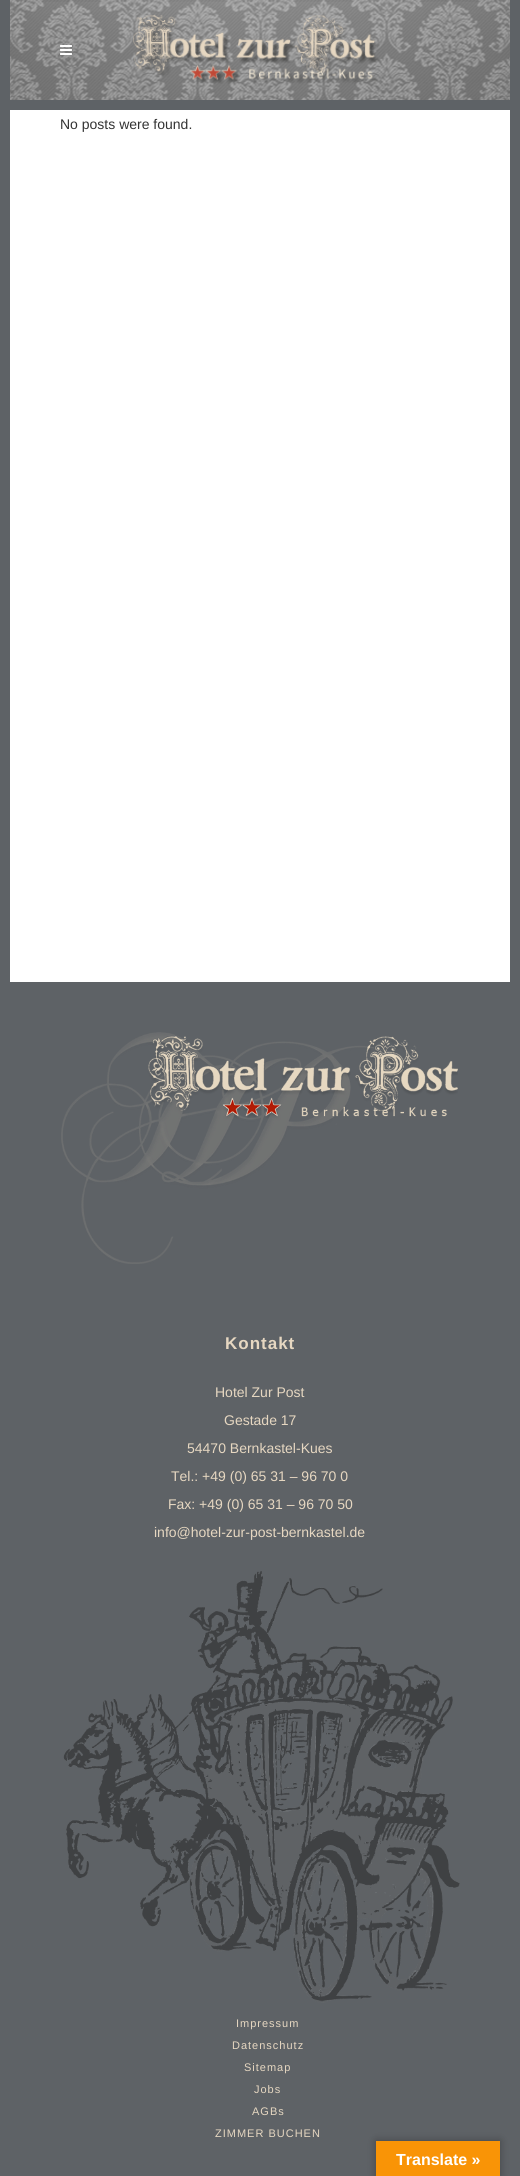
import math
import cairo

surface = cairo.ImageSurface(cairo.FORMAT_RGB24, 520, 2176)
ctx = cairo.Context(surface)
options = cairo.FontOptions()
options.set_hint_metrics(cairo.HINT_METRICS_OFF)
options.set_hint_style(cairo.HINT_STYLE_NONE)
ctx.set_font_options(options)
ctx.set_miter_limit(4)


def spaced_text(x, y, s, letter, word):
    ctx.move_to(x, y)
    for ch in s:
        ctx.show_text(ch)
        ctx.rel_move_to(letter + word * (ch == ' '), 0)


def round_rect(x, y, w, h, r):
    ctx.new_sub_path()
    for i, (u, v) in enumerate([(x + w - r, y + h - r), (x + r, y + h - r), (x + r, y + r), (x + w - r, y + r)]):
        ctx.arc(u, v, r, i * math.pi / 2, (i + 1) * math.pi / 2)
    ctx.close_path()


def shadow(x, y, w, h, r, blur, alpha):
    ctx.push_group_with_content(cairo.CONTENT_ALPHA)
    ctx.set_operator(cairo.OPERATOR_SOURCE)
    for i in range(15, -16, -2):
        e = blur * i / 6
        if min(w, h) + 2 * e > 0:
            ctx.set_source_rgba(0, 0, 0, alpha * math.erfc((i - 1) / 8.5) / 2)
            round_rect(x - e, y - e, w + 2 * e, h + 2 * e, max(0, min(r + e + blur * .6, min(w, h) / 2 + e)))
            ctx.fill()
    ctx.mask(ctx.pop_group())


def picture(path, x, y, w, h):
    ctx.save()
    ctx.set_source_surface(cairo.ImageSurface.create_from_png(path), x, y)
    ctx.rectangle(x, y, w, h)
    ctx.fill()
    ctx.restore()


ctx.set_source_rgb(1, 1, 1)
ctx.paint()
picture("img1.png", 10, 0, 500, 100)
picture("img2.png", 60, 45, 12, 10)
picture("img3.png", 133, 14, 247, 70)
ctx.set_source_rgb(0.369, 0.384, 0.4)
ctx.rectangle(0, 0, 10, 2176)
ctx.fill()
ctx.rectangle(10, 100, 500, 10)
ctx.fill()
ctx.select_font_face("Liberation Sans")
ctx.set_font_size(14)
ctx.set_source_rgb(0.2, 0.2, 0.2)
ctx.move_to(60, 129)
ctx.show_text("No posts were found.")
ctx.set_source_rgb(0.369, 0.384, 0.4)
ctx.rectangle(510, 0, 10, 2176)
ctx.fill()
ctx.rectangle(10, 982, 500, 1194)
ctx.fill()
picture("img4.png", 61, 1032, 397, 232)
ctx.select_font_face("Liberation Sans", cairo.FONT_SLANT_NORMAL, cairo.FONT_WEIGHT_BOLD)
ctx.set_font_size(17)
ctx.set_source_rgb(0.902, 0.843, 0.757)
spaced_text(225, 1349, "Kontakt", 1, 0)
ctx.select_font_face("Liberation Sans")
ctx.set_font_size(14)
ctx.move_to(215, 1397)
ctx.show_text("Hotel Zur Post")
ctx.move_to(224, 1425)
ctx.show_text("Gestade 17")
ctx.move_to(187, 1453)
ctx.show_text("54470 Bernkastel-Kues")
ctx.move_to(171, 1481)
ctx.show_text("Tel.: +49 (0) 65 31 – 96 70 0")
ctx.move_to(168, 1509)
ctx.show_text("Fax: +49 (0) 65 31 – 96 70 50")
ctx.move_to(154, 1537)
ctx.show_text("info@hotel-zur-post-bernkastel.de")
picture("img5.png", 63, 1571, 397, 432)
ctx.set_font_size(11)
spaced_text(236, 2027, "Impressum", 1, 0)
spaced_text(232, 2049, "Datenschutz", 1, 0)
spaced_text(244, 2071, "Sitemap", 1, 0)
spaced_text(254, 2093, "Jobs", 1, 0)
spaced_text(252, 2115, "AGBs", 1, 0)
spaced_text(215, 2137, "ZIMMER BUCHEN", 1, 0)
ctx.set_source_rgb(0, 0, 0)
shadow(376, 2141, 124, 35, 0, 4.5, 0.3)
ctx.set_source_rgb(0.973, 0.58, 0.024)
ctx.rectangle(376, 2141, 124, 35)
ctx.fill()
ctx.select_font_face("Liberation Sans", cairo.FONT_SLANT_NORMAL, cairo.FONT_WEIGHT_BOLD)
ctx.set_font_size(16)
ctx.set_source_rgb(1, 1, 1)
ctx.move_to(396, 2165)
ctx.show_text("Translate »")
surface.write_to_png("page.png")
